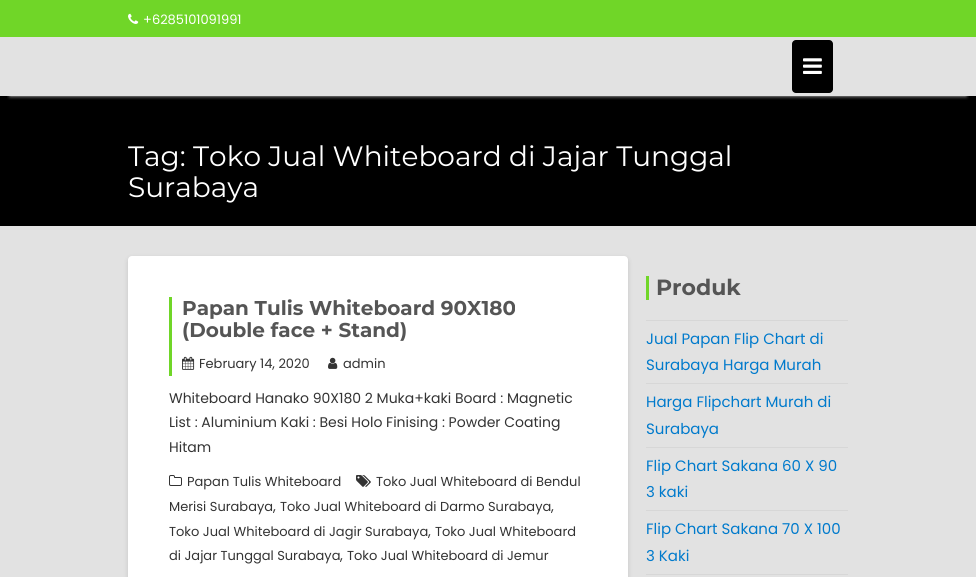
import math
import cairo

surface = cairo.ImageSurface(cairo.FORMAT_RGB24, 976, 577)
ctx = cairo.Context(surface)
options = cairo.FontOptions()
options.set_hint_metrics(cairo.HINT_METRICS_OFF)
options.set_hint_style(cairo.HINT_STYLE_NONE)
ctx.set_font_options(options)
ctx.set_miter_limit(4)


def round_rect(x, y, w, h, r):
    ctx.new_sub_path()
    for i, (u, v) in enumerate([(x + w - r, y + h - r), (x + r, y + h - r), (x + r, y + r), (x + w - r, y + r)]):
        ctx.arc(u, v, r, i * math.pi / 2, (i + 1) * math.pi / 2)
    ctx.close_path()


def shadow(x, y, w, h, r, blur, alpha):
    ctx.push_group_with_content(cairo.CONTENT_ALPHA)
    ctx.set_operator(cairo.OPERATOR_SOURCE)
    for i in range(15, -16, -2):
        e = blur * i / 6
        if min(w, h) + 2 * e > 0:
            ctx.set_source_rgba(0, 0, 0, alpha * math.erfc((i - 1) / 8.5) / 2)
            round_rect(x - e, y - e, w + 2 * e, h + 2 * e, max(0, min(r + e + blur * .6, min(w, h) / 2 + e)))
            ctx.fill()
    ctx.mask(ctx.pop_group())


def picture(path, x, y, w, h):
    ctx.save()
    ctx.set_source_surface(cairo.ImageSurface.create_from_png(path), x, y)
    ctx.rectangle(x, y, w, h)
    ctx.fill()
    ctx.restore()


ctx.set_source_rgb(0.886, 0.886, 0.886)
ctx.paint()
ctx.set_source_rgb(0.439, 0.839, 0.157)
ctx.rectangle(0, 0, 976, 37)
ctx.fill()
picture("img1.png", 128, 13, 11, 11)
ctx.select_font_face("Poppins")
ctx.set_font_size(13)
ctx.set_source_rgb(1, 1, 1)
ctx.move_to(143, 24)
ctx.show_text("+6285101091991")
ctx.set_source_rgb(0, 0, 0)
ctx.rectangle(0, 96, 976, 130)
ctx.fill()
ctx.save()
ctx.rectangle(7, 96, 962, 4)
ctx.clip()
ctx.set_source_rgb(0.933, 0.933, 0.933)
shadow(10, 57, 956, 39, 0, 2, 0.9)
ctx.restore()
round_rect(792, 40, 41, 53, 4)
ctx.fill()
picture("img2.png", 803, 58, 19, 16)
ctx.select_font_face("Montserrat")
ctx.set_font_size(28)
ctx.set_source_rgb(1, 1, 1)
ctx.move_to(128, 166)
ctx.show_text("Tag: Toko Jual Whiteboard di Jajar Tunggal")
ctx.move_to(128, 197)
ctx.show_text("Surabaya")
ctx.set_source_rgb(0, 0, 0)
shadow(128, 258, 500, 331, 4, 2.5, 0.13)
ctx.set_source_rgb(1, 1, 1)
round_rect(128, 256, 500, 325, 4)
ctx.fill()
ctx.set_source_rgb(0.439, 0.839, 0.157)
ctx.rectangle(169, 297, 3, 79)
ctx.fill()
ctx.select_font_face("Montserrat", cairo.FONT_SLANT_NORMAL, cairo.FONT_WEIGHT_BOLD)
ctx.set_font_size(20)
ctx.set_source_rgb(0.333, 0.333, 0.333)
ctx.move_to(182, 315)
ctx.show_text("Papan Tulis Whiteboard 90X180")
ctx.move_to(182, 337)
ctx.show_text("(Double face + Stand)")
picture("img3.png", 182, 356, 13, 14)
ctx.select_font_face("Poppins")
ctx.set_font_size(13)
ctx.set_source_rgb(0.2, 0.2, 0.2)
ctx.move_to(199, 368)
ctx.show_text("February 14, 2020")
picture("img4.png", 328, 357, 10, 12)
ctx.move_to(343, 368)
ctx.show_text("admin")
ctx.set_font_size(14)
ctx.move_to(169, 403)
ctx.show_text("Whiteboard Hanako 90X180 2 Muka+kaki Board : Magnetic")
ctx.move_to(169, 427)
ctx.show_text("List : Aluminium Kaki : Besi Holo Finising : Powder Coating")
ctx.move_to(169, 452)
ctx.show_text("Hitam")
picture("img5.png", 356, 475, 15, 12)
ctx.set_font_size(13)
ctx.move_to(376, 486)
ctx.show_text("Toko Jual Whiteboard di Bendul")
ctx.move_to(169, 511)
ctx.show_text("Merisi Surabaya")
ctx.set_font_size(14)
ctx.move_to(273, 511)
ctx.show_text(",")
ctx.set_font_size(13)
ctx.move_to(280, 511)
ctx.show_text("Toko Jual Whiteboard di Darmo Surabaya")
ctx.set_font_size(14)
ctx.move_to(551, 511)
ctx.show_text(",")
ctx.set_font_size(13)
ctx.move_to(169, 536)
ctx.show_text("Toko Jual Whiteboard di Jagir Surabaya")
ctx.set_font_size(14)
ctx.move_to(428, 536)
ctx.show_text(",")
ctx.set_font_size(13)
ctx.move_to(435, 536)
ctx.show_text("Toko Jual Whiteboard")
ctx.move_to(169, 560)
ctx.show_text("di Jajar Tunggal Surabaya")
ctx.set_font_size(14)
ctx.move_to(340, 560)
ctx.show_text(",")
ctx.set_font_size(13)
ctx.move_to(347, 560)
ctx.show_text("Toko Jual Whiteboard di Jemur")
picture("img6.png", 169, 475, 13, 11)
ctx.move_to(187, 486)
ctx.show_text("Papan Tulis Whiteboard")
ctx.set_source_rgb(0.439, 0.839, 0.157)
ctx.rectangle(646, 276, 3, 24)
ctx.fill()
ctx.select_font_face("Montserrat", cairo.FONT_SLANT_NORMAL, cairo.FONT_WEIGHT_BOLD)
ctx.set_font_size(22)
ctx.set_source_rgb(0.333, 0.333, 0.333)
ctx.move_to(656, 295)
ctx.show_text("Produk")
ctx.set_source_rgb(0.843, 0.843, 0.843)
ctx.rectangle(646, 320, 202, 1)
ctx.fill()
ctx.select_font_face("Poppins")
ctx.set_font_size(15)
ctx.set_source_rgb(0, 0.478, 0.8)
ctx.move_to(646, 344)
ctx.show_text("Jual Papan Flip Chart di")
ctx.move_to(646, 370)
ctx.show_text("Surabaya Harga Murah")
ctx.set_source_rgb(0.843, 0.843, 0.843)
ctx.rectangle(646, 383, 202, 1)
ctx.fill()
ctx.set_source_rgb(0, 0.478, 0.8)
ctx.move_to(646, 407)
ctx.show_text("Harga Flipchart Murah di")
ctx.move_to(646, 434)
ctx.show_text("Surabaya")
ctx.set_source_rgb(0.843, 0.843, 0.843)
ctx.rectangle(646, 447, 202, 1)
ctx.fill()
ctx.set_source_rgb(0, 0.478, 0.8)
ctx.move_to(646, 471)
ctx.show_text("Flip Chart Sakana 60 X 90")
ctx.move_to(646, 497)
ctx.show_text("3 kaki")
ctx.set_source_rgb(0.843, 0.843, 0.843)
ctx.rectangle(646, 510, 202, 1)
ctx.fill()
ctx.set_source_rgb(0, 0.478, 0.8)
ctx.move_to(646, 534)
ctx.show_text("Flip Chart Sakana 70 X 100")
ctx.move_to(646, 561)
ctx.show_text("3 Kaki")
ctx.set_source_rgb(0.843, 0.843, 0.843)
ctx.rectangle(646, 574, 202, 1)
ctx.fill()
surface.write_to_png("page.png")
